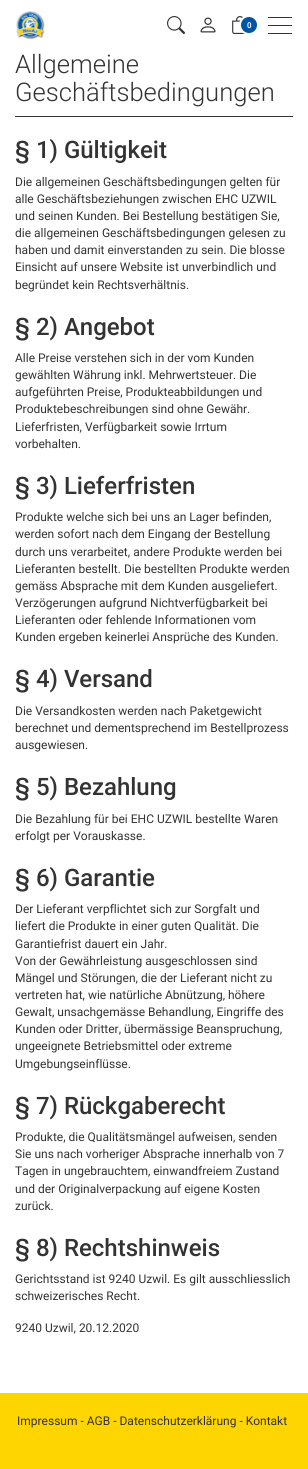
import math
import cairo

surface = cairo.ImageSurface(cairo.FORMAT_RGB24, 308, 1469)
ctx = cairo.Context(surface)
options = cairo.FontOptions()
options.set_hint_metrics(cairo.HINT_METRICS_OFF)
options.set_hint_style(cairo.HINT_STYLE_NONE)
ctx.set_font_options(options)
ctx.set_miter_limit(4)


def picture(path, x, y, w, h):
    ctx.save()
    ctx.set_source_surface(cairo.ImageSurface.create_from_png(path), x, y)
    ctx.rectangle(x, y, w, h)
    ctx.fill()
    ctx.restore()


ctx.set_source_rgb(1, 1, 1)
ctx.paint()
picture("img1.png", 16, 11, 29, 29)
picture("img2.png", 167, 16, 18, 18)
picture("img3.png", 200, 17, 16, 16)
picture("img4.png", 232, 16, 13, 18)
ctx.set_source_rgb(0, 0.333, 0.643)
ctx.arc(249, 25, 9, 0, 2 * math.pi)
ctx.fill_preserve()
ctx.set_source_rgb(1, 1, 1)
ctx.stroke()
ctx.select_font_face("Roboto SemiBold")
ctx.set_font_size(8)
ctx.move_to(247, 28)
ctx.show_text("0")
ctx.set_source_rgb(0.2, 0.2, 0.2)
ctx.rectangle(268, 17, 24, 1)
ctx.fill()
ctx.rectangle(268, 25, 24, 1)
ctx.fill()
ctx.rectangle(268, 33, 24, 1)
ctx.fill()
ctx.rectangle(15, 116, 278, 1)
ctx.fill()
ctx.select_font_face("Roboto Light")
ctx.set_font_size(25.6)
ctx.move_to(15, 73)
ctx.show_text("Allgemeine")
ctx.move_to(15, 101)
ctx.show_text("Geschäftsbedingungen")
ctx.select_font_face("Roboto Medium")
ctx.set_font_size(24)
ctx.move_to(15, 158)
ctx.show_text("§ 1) Gültigkeit")
ctx.select_font_face("Roboto")
ctx.set_font_size(12)
ctx.move_to(15, 186)
ctx.show_text("Die allgemeinen Geschäftsbedingungen gelten für")
ctx.move_to(15, 203)
ctx.show_text("alle Geschäftsbeziehungen zwischen EHC UZWIL")
ctx.move_to(15, 220)
ctx.show_text("und seinen Kunden. Bei Bestellung bestätigen Sie,")
ctx.move_to(15, 237)
ctx.show_text("die allgemeinen Geschäftsbedingungen gelesen zu")
ctx.move_to(15, 254)
ctx.show_text("haben und damit einverstanden zu sein. Die blosse")
ctx.move_to(15, 271)
ctx.show_text("Einsicht auf unsere Website ist unverbindlich und")
ctx.move_to(15, 289)
ctx.show_text("begründet kein Rechtsverhältnis.")
ctx.select_font_face("Roboto Medium")
ctx.set_font_size(24)
ctx.move_to(15, 335)
ctx.show_text("§ 2) Angebot")
ctx.select_font_face("Roboto")
ctx.set_font_size(12)
ctx.move_to(15, 362)
ctx.show_text("Alle Preise verstehen sich in der vom Kunden")
ctx.move_to(15, 379)
ctx.show_text("gewählten Währung inkl. Mehrwertsteuer. Die")
ctx.move_to(15, 396)
ctx.show_text("aufgeführten Preise, Produkteabbildungen und")
ctx.move_to(15, 413)
ctx.show_text("Produktebeschreibungen sind ohne Gewähr.")
ctx.move_to(15, 431)
ctx.show_text("Lieferfristen, Verfügbarkeit sowie Irrtum")
ctx.move_to(15, 448)
ctx.show_text("vorbehalten.")
ctx.select_font_face("Roboto Medium")
ctx.set_font_size(24)
ctx.move_to(15, 494)
ctx.show_text("§ 3) Lieferfristen")
ctx.select_font_face("Roboto")
ctx.set_font_size(12)
ctx.move_to(15, 521)
ctx.show_text("Produkte welche sich bei uns an Lager befinden,")
ctx.move_to(15, 538)
ctx.show_text("werden sofort nach dem Eingang der Bestellung")
ctx.move_to(15, 556)
ctx.show_text("durch uns verarbeitet, andere Produkte werden bei")
ctx.move_to(15, 573)
ctx.show_text("Lieferanten bestellt. Die bestellten Produkte werden")
ctx.move_to(15, 590)
ctx.show_text("gemäss Absprache mit dem Kunden ausgeliefert.")
ctx.move_to(15, 607)
ctx.show_text("Verzögerungen aufgrund Nichtverfügbarkeit bei")
ctx.move_to(15, 624)
ctx.show_text("Lieferanten oder fehlende Informationen vom")
ctx.move_to(15, 641)
ctx.show_text("Kunden ergeben keinerlei Ansprüche des Kunden.")
ctx.select_font_face("Roboto Medium")
ctx.set_font_size(24)
ctx.move_to(15, 687)
ctx.show_text("§ 4) Versand")
ctx.select_font_face("Roboto")
ctx.set_font_size(12)
ctx.move_to(15, 715)
ctx.show_text("Die Versandkosten werden nach Paketgewicht")
ctx.move_to(15, 732)
ctx.show_text("berechnet und dementsprechend im Bestellprozess")
ctx.move_to(15, 749)
ctx.show_text("ausgewiesen.")
ctx.select_font_face("Roboto Medium")
ctx.set_font_size(24)
ctx.move_to(15, 795)
ctx.show_text("§ 5) Bezahlung")
ctx.select_font_face("Roboto")
ctx.set_font_size(12)
ctx.move_to(15, 823)
ctx.show_text("Die Bezahlung für bei EHC UZWIL bestellte Waren")
ctx.move_to(15, 840)
ctx.show_text("erfolgt per Vorauskasse.")
ctx.select_font_face("Roboto Medium")
ctx.set_font_size(24)
ctx.move_to(15, 886)
ctx.show_text("§ 6) Garantie")
ctx.select_font_face("Roboto")
ctx.set_font_size(12)
ctx.move_to(15, 913)
ctx.show_text("Der Lieferant verpflichtet sich zur Sorgfalt und")
ctx.move_to(15, 930)
ctx.show_text("liefert die Produkte in einer guten Qualität. Die")
ctx.move_to(15, 948)
ctx.show_text("Garantiefrist dauert ein Jahr.")
ctx.move_to(15, 965)
ctx.show_text("Von der Gewährleistung ausgeschlossen sind")
ctx.move_to(15, 982)
ctx.show_text("Mängel und Störungen, die der Lieferant nicht zu")
ctx.move_to(15, 999)
ctx.show_text("vertreten hat, wie natürliche Abnützung, höhere")
ctx.move_to(15, 1016)
ctx.show_text("Gewalt, unsachgemässe Behandlung, Eingriffe des")
ctx.move_to(15, 1033)
ctx.show_text("Kunden oder Dritter, übermässige Beanspruchung,")
ctx.move_to(15, 1050)
ctx.show_text("ungeeignete Betriebsmittel oder extreme")
ctx.move_to(15, 1068)
ctx.show_text("Umgebungseinflüsse.")
ctx.select_font_face("Roboto Medium")
ctx.set_font_size(24)
ctx.move_to(15, 1114)
ctx.show_text("§ 7) Rückgaberecht")
ctx.select_font_face("Roboto")
ctx.set_font_size(12)
ctx.move_to(15, 1141)
ctx.show_text("Produkte, die Qualitätsmängel aufweisen, senden")
ctx.move_to(15, 1158)
ctx.show_text("Sie uns nach vorheriger Absprache innerhalb von 7")
ctx.move_to(15, 1175)
ctx.show_text("Tagen in ungebrauchtem, einwandfreiem Zustand")
ctx.move_to(15, 1193)
ctx.show_text("und der Originalverpackung auf eigene Kosten")
ctx.move_to(15, 1210)
ctx.show_text("zurück.")
ctx.select_font_face("Roboto Medium")
ctx.set_font_size(24)
ctx.move_to(15, 1256)
ctx.show_text("§ 8) Rechtshinweis")
ctx.select_font_face("Roboto")
ctx.set_font_size(12)
ctx.move_to(15, 1283)
ctx.show_text("Gerichtsstand ist 9240 Uzwil. Es gilt ausschliesslich")
ctx.move_to(15, 1300)
ctx.show_text("schweizerisches Recht.")
ctx.move_to(15, 1332)
ctx.show_text("9240 Uzwil, 20.12.2020")
ctx.set_source_rgb(1, 0.835, 0)
ctx.rectangle(0, 1393, 308, 76)
ctx.fill()
ctx.set_source_rgb(0.2, 0.2, 0.2)
ctx.move_to(17, 1425)
ctx.show_text("Impressum - AGB - Datenschutzerklärung - Kontakt")
surface.write_to_png("page.png")
